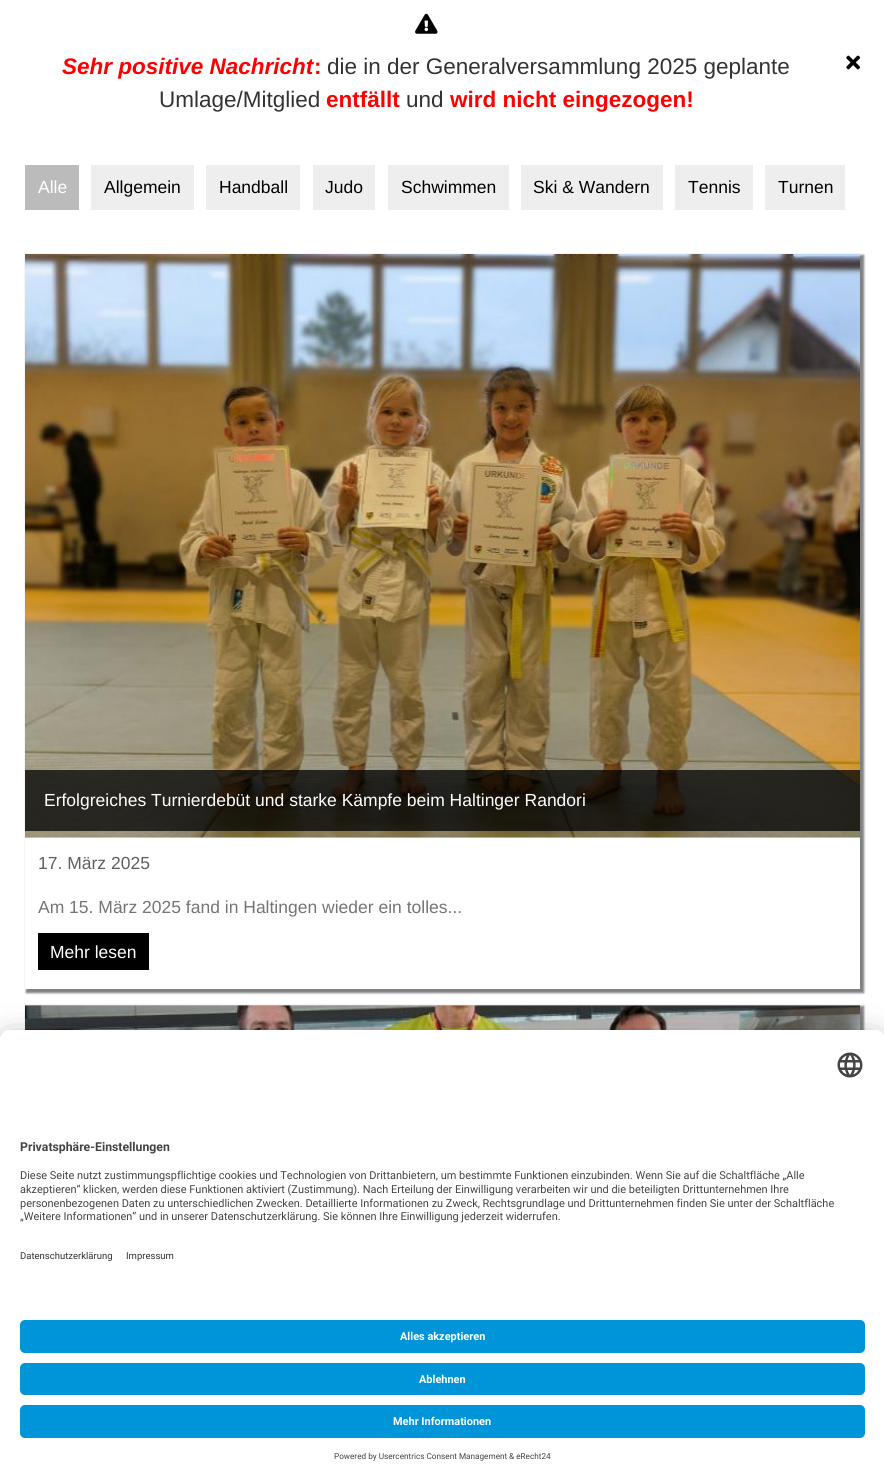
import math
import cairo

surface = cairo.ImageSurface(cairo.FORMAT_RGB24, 884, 1482)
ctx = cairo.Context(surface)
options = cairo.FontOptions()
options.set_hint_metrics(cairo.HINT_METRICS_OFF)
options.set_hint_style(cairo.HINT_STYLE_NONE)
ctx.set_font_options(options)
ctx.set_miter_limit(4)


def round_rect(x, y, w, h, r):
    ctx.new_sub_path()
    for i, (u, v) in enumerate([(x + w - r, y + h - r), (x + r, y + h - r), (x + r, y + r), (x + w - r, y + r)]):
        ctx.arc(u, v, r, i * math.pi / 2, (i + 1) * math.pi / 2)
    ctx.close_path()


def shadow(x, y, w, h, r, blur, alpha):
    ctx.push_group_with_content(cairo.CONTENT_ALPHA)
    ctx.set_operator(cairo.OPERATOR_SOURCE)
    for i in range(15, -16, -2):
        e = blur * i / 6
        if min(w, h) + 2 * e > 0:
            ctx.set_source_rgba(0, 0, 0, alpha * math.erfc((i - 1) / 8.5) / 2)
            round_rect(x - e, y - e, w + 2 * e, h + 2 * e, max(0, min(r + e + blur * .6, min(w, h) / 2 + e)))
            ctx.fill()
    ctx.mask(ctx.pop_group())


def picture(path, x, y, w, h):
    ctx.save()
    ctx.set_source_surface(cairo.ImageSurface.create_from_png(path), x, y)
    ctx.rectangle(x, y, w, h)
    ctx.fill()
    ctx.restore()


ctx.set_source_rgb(1, 1, 1)
ctx.paint()
picture("img1.png", 415, 13, 23, 21)
ctx.select_font_face("Liberation Sans", cairo.FONT_SLANT_ITALIC, cairo.FONT_WEIGHT_BOLD)
ctx.set_font_size(22.5)
ctx.set_source_rgb(1, 0, 0)
ctx.move_to(62, 74)
ctx.show_text("Sehr positive Nachricht")
ctx.select_font_face("Liberation Sans", cairo.FONT_SLANT_NORMAL, cairo.FONT_WEIGHT_BOLD)
ctx.move_to(314, 74)
ctx.show_text(":")
ctx.select_font_face("Liberation Sans")
ctx.set_source_rgb(0.2, 0.2, 0.2)
ctx.move_to(327, 74)
ctx.show_text("die in der Generalversammlung 2025 geplante")
ctx.move_to(159, 107)
ctx.show_text("Umlage/Mitglied")
ctx.select_font_face("Liberation Sans", cairo.FONT_SLANT_NORMAL, cairo.FONT_WEIGHT_BOLD)
ctx.set_source_rgb(1, 0, 0)
ctx.move_to(326, 107)
ctx.show_text("entfällt")
ctx.select_font_face("Liberation Sans")
ctx.set_source_rgb(0.2, 0.2, 0.2)
ctx.move_to(406, 107)
ctx.show_text("und")
ctx.select_font_face("Liberation Sans", cairo.FONT_SLANT_NORMAL, cairo.FONT_WEIGHT_BOLD)
ctx.set_source_rgb(1, 0, 0)
ctx.move_to(450, 107)
ctx.show_text("wird nicht eingezogen!")
picture("img2.png", 846, 55, 14, 15)
ctx.set_source_rgb(0.733, 0.733, 0.733)
ctx.rectangle(25, 165, 54, 45)
ctx.fill()
ctx.select_font_face("Liberation Sans")
ctx.set_font_size(17.5)
ctx.set_source_rgb(1, 1, 1)
ctx.move_to(38, 193)
ctx.show_text("Alle")
ctx.set_source_rgb(0.933, 0.933, 0.933)
ctx.rectangle(91, 165, 103, 45)
ctx.fill()
ctx.set_source_rgb(0, 0, 0)
ctx.move_to(104, 193)
ctx.show_text("Allgemein")
ctx.set_source_rgb(0.933, 0.933, 0.933)
ctx.rectangle(206, 165, 94, 45)
ctx.fill()
ctx.set_source_rgb(0, 0, 0)
ctx.move_to(219, 193)
ctx.show_text("Handball")
ctx.set_source_rgb(0.933, 0.933, 0.933)
ctx.rectangle(313, 165, 62, 45)
ctx.fill()
ctx.set_source_rgb(0, 0, 0)
ctx.move_to(325, 193)
ctx.show_text("Judo")
ctx.set_source_rgb(0.933, 0.933, 0.933)
ctx.rectangle(388, 165, 121, 45)
ctx.fill()
ctx.set_source_rgb(0, 0, 0)
ctx.move_to(401, 193)
ctx.show_text("Schwimmen")
ctx.set_source_rgb(0.933, 0.933, 0.933)
ctx.rectangle(521, 165, 142, 45)
ctx.fill()
ctx.set_source_rgb(0, 0, 0)
ctx.move_to(533, 193)
ctx.show_text("Ski & Wandern")
ctx.set_source_rgb(0.933, 0.933, 0.933)
ctx.rectangle(675, 165, 78, 45)
ctx.fill()
ctx.set_source_rgb(0, 0, 0)
ctx.move_to(688, 193)
ctx.show_text("Tennis")
ctx.set_source_rgb(0.933, 0.933, 0.933)
ctx.rectangle(765, 165, 80, 45)
ctx.fill()
ctx.set_source_rgb(0, 0, 0)
ctx.move_to(778, 193)
ctx.show_text("Turnen")
ctx.save()
ctx.set_fill_rule(cairo.FILL_RULE_EVEN_ODD)
ctx.new_path()
ctx.move_to(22, 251)
ctx.line_to(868, 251)
ctx.line_to(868, 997)
ctx.line_to(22, 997)
ctx.close_path()
ctx.move_to(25, 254)
ctx.line_to(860, 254)
ctx.line_to(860, 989)
ctx.line_to(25, 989)
ctx.close_path()
ctx.clip()
ctx.set_source_rgb(0, 0, 0)
shadow(26, 255, 838, 738, 0, 1, 0.5)
ctx.restore()
picture("img3.png", 25, 254, 835, 584)
ctx.set_source_rgba(0, 0, 0, 0.75)
ctx.rectangle(25, 770, 835, 61)
ctx.fill()
ctx.set_source_rgb(1, 1, 1)
ctx.move_to(44, 806)
ctx.show_text("Erfolgreiches Turnierdebüt und starke Kämpfe beim Haltinger Randori")
ctx.set_source_rgb(0.376, 0.376, 0.376)
ctx.move_to(38, 869)
ctx.show_text("17. März 2025")
ctx.set_source_rgb(0.459, 0.459, 0.459)
ctx.move_to(38, 913)
ctx.show_text("Am 15. März 2025 fand in Haltingen wieder ein tolles...")
ctx.set_source_rgb(0, 0, 0)
ctx.rectangle(38, 933, 111, 37)
ctx.fill()
ctx.set_source_rgb(1, 1, 1)
ctx.move_to(50, 958)
ctx.show_text("Mehr lesen")
ctx.set_source_rgb(0, 0, 0)
shadow(26, 1006, 838, 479, 0, 1, 0.5)
picture("img4.png", 25, 1005, 835, 25)
shadow(0, 1055, 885, 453, 10, 17.5, 0.3)
shadow(0, 1036, 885, 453, 10, 16, 0.22)
ctx.set_source_rgb(1, 1, 1)
ctx.new_path()
ctx.move_to(10, 1030)
ctx.line_to(875, 1030)
ctx.curve_to(880.5, 1030, 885, 1034.5, 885, 1040)
ctx.line_to(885, 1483)
ctx.line_to(0, 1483)
ctx.line_to(0, 1040)
ctx.curve_to(0, 1034.5, 4.5, 1030, 10, 1030)
ctx.close_path()
ctx.fill()
ctx.new_path()
ctx.move_to(10, 1030)
ctx.line_to(875, 1030)
ctx.curve_to(880.5, 1030, 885, 1034.5, 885, 1040)
ctx.line_to(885, 1305)
ctx.line_to(0, 1305)
ctx.line_to(0, 1040)
ctx.curve_to(0, 1034.5, 4.5, 1030, 10, 1030)
ctx.close_path()
ctx.fill()
picture("img5.png", 837, 1052, 26, 26)
ctx.select_font_face("Roboto", cairo.FONT_SLANT_NORMAL, cairo.FONT_WEIGHT_BOLD)
ctx.set_font_size(12.25)
ctx.set_source_rgb(0.267, 0.267, 0.267)
ctx.move_to(20, 1151)
ctx.show_text("Privatsphäre-Einstellungen")
ctx.select_font_face("Roboto")
ctx.set_font_size(10.95)
ctx.move_to(20, 1179)
ctx.show_text("Diese Seite nutzt zustimmungspflichtige cookies und Technologien von Drittanbietern, um bestimmte Funktionen einzubinden. Wenn Sie auf die Schaltfläche „Alle")
ctx.move_to(20, 1193)
ctx.show_text("akzeptieren“ klicken, werden diese Funktionen aktiviert (Zustimmung). Nach Erteilung der Einwilligung verarbeiten wir und die beteiligten Drittunternehmen Ihre")
ctx.move_to(20, 1207)
ctx.show_text("personenbezogenen Daten zu unterschiedlichen Zwecken. Detaillierte Informationen zu Zweck, Rechtsgrundlage und Drittunternehmen finden Sie unter der Schaltfläche")
ctx.move_to(20, 1220)
ctx.show_text("„Weitere Informationen“ und in unserer Datenschutzerklärung. Sie können Ihre Einwilligung jederzeit widerrufen.")
ctx.set_font_size(9.5)
ctx.set_source_rgb(0.2, 0.2, 0.2)
ctx.move_to(20, 1259)
ctx.show_text("Datenschutzerklärung")
ctx.move_to(126, 1259)
ctx.show_text("Impressum")
ctx.set_source_rgb(0, 0.58, 0.847)
round_rect(20, 1320, 845, 33, 5)
ctx.fill()
ctx.select_font_face("Roboto", cairo.FONT_SLANT_NORMAL, cairo.FONT_WEIGHT_BOLD)
ctx.set_font_size(10.95)
ctx.set_source_rgb(1, 1, 1)
ctx.move_to(400, 1340)
ctx.show_text("Alles akzeptieren")
ctx.set_source_rgb(0, 0.58, 0.847)
round_rect(20, 1363, 845, 32, 5)
ctx.fill()
ctx.set_source_rgb(1, 1, 1)
ctx.move_to(419, 1383)
ctx.show_text("Ablehnen")
ctx.set_source_rgb(0, 0.58, 0.847)
round_rect(20, 1405, 845, 33, 5)
ctx.fill()
ctx.set_source_rgb(1, 1, 1)
ctx.move_to(393, 1425)
ctx.show_text("Mehr Informationen")
ctx.select_font_face("Roboto")
ctx.set_font_size(8.2)
ctx.set_source_rgb(0.267, 0.267, 0.267)
ctx.move_to(334, 1459)
ctx.show_text("Powered by Usercentrics Consent Management")
ctx.move_to(509, 1459)
ctx.show_text("& eRecht24")
surface.write_to_png("page.png")
